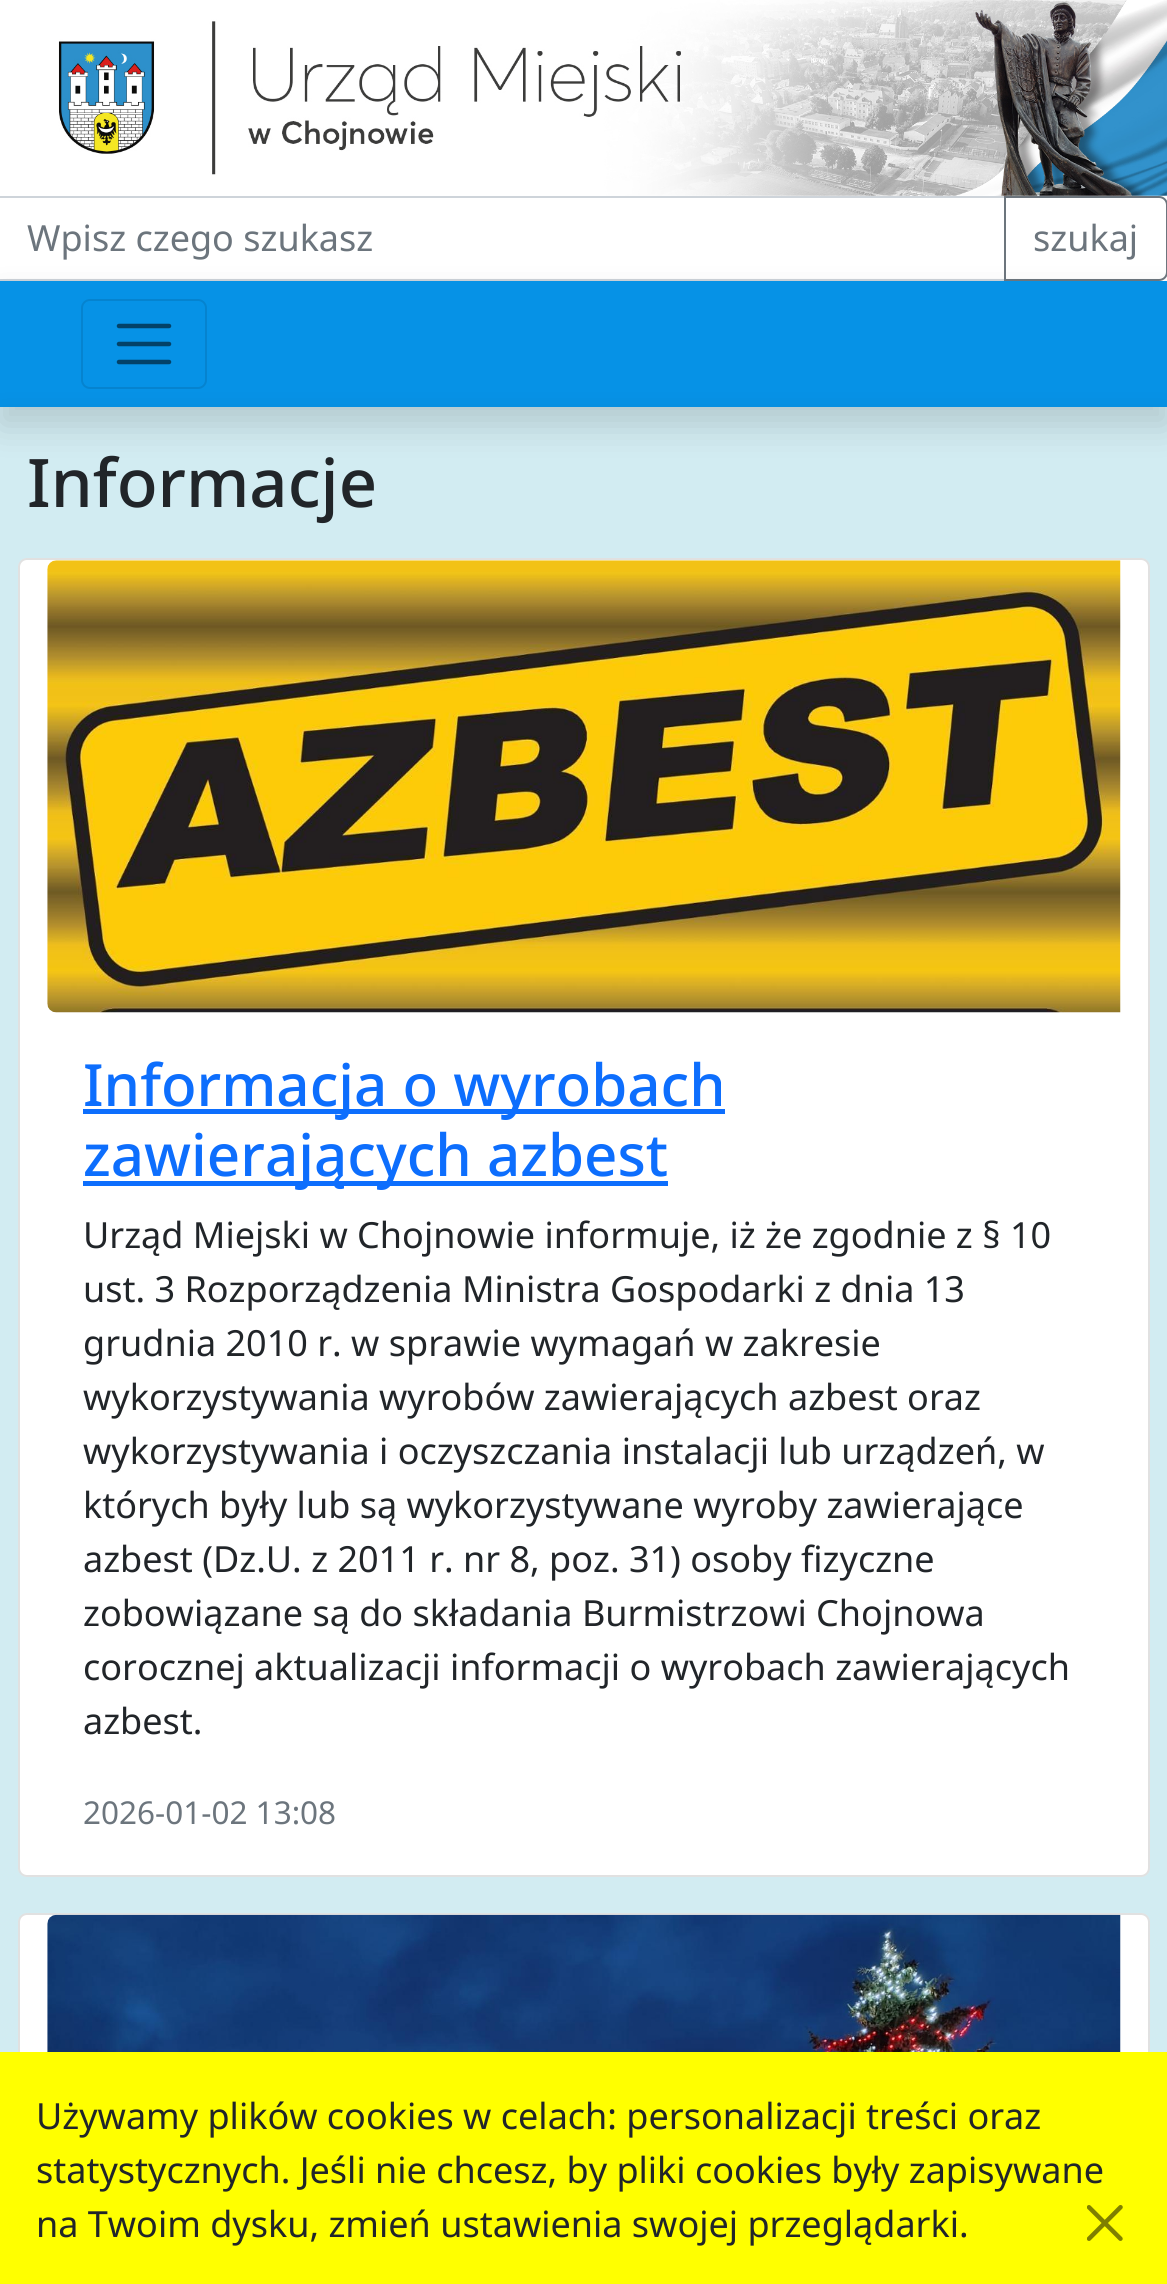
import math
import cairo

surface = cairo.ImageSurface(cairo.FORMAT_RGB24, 1167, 2284)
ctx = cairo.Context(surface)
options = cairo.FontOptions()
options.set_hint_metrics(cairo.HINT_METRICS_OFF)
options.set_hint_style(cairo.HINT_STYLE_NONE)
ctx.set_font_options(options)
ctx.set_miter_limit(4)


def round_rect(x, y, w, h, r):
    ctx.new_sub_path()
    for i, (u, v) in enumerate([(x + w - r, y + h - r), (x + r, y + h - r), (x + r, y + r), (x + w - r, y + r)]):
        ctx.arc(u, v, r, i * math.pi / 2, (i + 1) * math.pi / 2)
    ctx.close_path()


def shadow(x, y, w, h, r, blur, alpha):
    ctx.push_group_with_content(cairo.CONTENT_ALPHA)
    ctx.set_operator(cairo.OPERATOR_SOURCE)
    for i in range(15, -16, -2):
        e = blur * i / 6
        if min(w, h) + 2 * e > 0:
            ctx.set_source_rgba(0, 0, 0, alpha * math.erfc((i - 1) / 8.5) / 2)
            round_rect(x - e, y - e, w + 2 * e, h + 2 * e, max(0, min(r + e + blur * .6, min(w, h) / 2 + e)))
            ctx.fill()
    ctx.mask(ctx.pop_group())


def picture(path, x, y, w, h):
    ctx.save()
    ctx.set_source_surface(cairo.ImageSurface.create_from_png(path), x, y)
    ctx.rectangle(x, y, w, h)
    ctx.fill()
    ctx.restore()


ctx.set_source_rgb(1, 1, 1)
ctx.paint()
picture("img1.png", 58, 0, 1109, 196)
ctx.rectangle(-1, 197, 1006, 83)
ctx.set_source_rgb(0.808, 0.831, 0.855)
ctx.stroke()
ctx.select_font_face("Noto Sans")
ctx.set_font_size(36)
ctx.set_source_rgb(0.424, 0.459, 0.49)
ctx.move_to(27, 251)
ctx.show_text("Wpisz czego szukasz")
ctx.set_source_rgb(0.024, 0.573, 0.902)
ctx.rectangle(0, 281, 1167, 126)
ctx.fill()
ctx.set_source_rgb(0, 0, 0)
shadow(0, 425, 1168, 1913, 0, 18, 0.15)
ctx.set_source_rgb(0.824, 0.922, 0.949)
ctx.rectangle(0, 407, 1167, 1645)
ctx.fill()
ctx.save()
ctx.set_fill_rule(cairo.FILL_RULE_EVEN_ODD)
ctx.new_path()
ctx.move_to(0, 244)
ctx.line_to(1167, 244)
ctx.line_to(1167, 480)
ctx.line_to(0, 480)
ctx.close_path()
ctx.move_to(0, 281)
ctx.line_to(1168, 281)
ctx.line_to(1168, 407)
ctx.line_to(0, 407)
ctx.close_path()
ctx.clip()
ctx.set_source_rgb(0, 0, 0)
shadow(0, 299, 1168, 126, 0, 18, 0.15)
ctx.restore()
ctx.new_path()
ctx.move_to(1005, 197)
ctx.line_to(1159, 197)
ctx.curve_to(1163.5, 197, 1167, 200.5, 1167, 205)
ctx.line_to(1167, 272)
ctx.curve_to(1167, 276.5, 1163.5, 280, 1159, 280)
ctx.line_to(1005, 280)
ctx.close_path()
ctx.set_source_rgb(0.424, 0.459, 0.49)
ctx.stroke()
ctx.move_to(1033, 251)
ctx.show_text("szukaj")
round_rect(82, 300, 124, 88, 8)
ctx.set_source_rgb(0.02, 0.514, 0.812)
ctx.stroke()
ctx.new_path()
ctx.move_to(119, 326)
ctx.line_to(169, 326)
ctx.move_to(119, 344)
ctx.line_to(169, 344)
ctx.move_to(119, 362)
ctx.line_to(169, 362)
ctx.set_source_rgb(0.012, 0.259, 0.408)
ctx.set_line_width(4.5)
ctx.set_line_cap(cairo.LINE_CAP_ROUND)
ctx.stroke()
ctx.select_font_face("Noto Sans Medium")
ctx.set_font_size(67)
ctx.set_source_rgb(0.129, 0.145, 0.161)
ctx.move_to(27, 507)
ctx.show_text("Informacje")
ctx.set_source_rgb(1, 1, 1)
round_rect(18, 558, 1132, 1319, 9)
ctx.fill()
round_rect(19, 559, 1130, 1317, 8)
ctx.set_source_rgba(0, 0, 0, 0.12)
ctx.set_line_width(2)
ctx.set_line_cap(cairo.LINE_CAP_BUTT)
ctx.stroke()
picture("img2.png", 47, 560, 1074, 453)
ctx.set_source_rgb(0.051, 0.431, 0.992)
ctx.rectangle(83, 1109, 642, 5)
ctx.fill()
ctx.set_font_size(58.25)
ctx.move_to(83, 1106)
ctx.show_text("Informacja o wyrobach")
ctx.rectangle(83, 1181, 585, 5)
ctx.fill()
ctx.move_to(83, 1176)
ctx.show_text("zawierających azbest")
ctx.select_font_face("Noto Sans")
ctx.set_font_size(36)
ctx.set_source_rgb(0.129, 0.145, 0.161)
ctx.move_to(83, 1248)
ctx.show_text("Urząd Miejski w Chojnowie informuje, iż że zgodnie z § 10")
ctx.move_to(83, 1302)
ctx.show_text("ust. 3 Rozporządzenia Ministra Gospodarki z dnia 13")
ctx.move_to(83, 1356)
ctx.show_text("grudnia 2010 r. w sprawie wymagań w zakresie")
ctx.move_to(83, 1410)
ctx.show_text("wykorzystywania wyrobów zawierających azbest oraz")
ctx.move_to(83, 1464)
ctx.show_text("wykorzystywania i oczyszczania instalacji lub urządzeń, w")
ctx.move_to(83, 1518)
ctx.show_text("których były lub są wykorzystywane wyroby zawierające")
ctx.move_to(83, 1572)
ctx.show_text("azbest (Dz.U. z 2011 r. nr 8, poz. 31) osoby fizyczne")
ctx.move_to(83, 1626)
ctx.show_text("zobowiązane są do składania Burmistrzowi Chojnowa")
ctx.move_to(83, 1680)
ctx.show_text("corocznej aktualizacji informacji o wyrobach zawierających")
ctx.move_to(83, 1734)
ctx.show_text("azbest.")
ctx.set_font_size(31.5)
ctx.set_source_rgb(0.424, 0.459, 0.49)
ctx.move_to(83, 1824)
ctx.show_text("2026-01-02 13:08")
ctx.set_source_rgb(1, 1, 1)
round_rect(18, 1913, 1132, 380, 9)
ctx.fill()
round_rect(19, 1914, 1130, 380, 8)
ctx.set_source_rgba(0, 0, 0, 0.12)
ctx.stroke()
picture("img3.png", 47, 1914, 1074, 138)
ctx.set_source_rgb(1, 1, 0)
ctx.rectangle(0, 2052, 1167, 232)
ctx.fill()
ctx.set_font_size(36)
ctx.set_source_rgb(0.129, 0.145, 0.161)
ctx.move_to(36, 2129)
ctx.show_text("Używamy plików cookies w celach: personalizacji treści oraz")
ctx.move_to(36, 2183)
ctx.show_text("statystycznych. Jeśli nie chcesz, by pliki cookies były zapisywane")
ctx.move_to(36, 2237)
ctx.show_text("na Twoim dysku, zmień ustawienia swojej przeglądarki.")
picture("img4.png", 1087, 2205, 36, 36)
surface.write_to_png("page.png")
